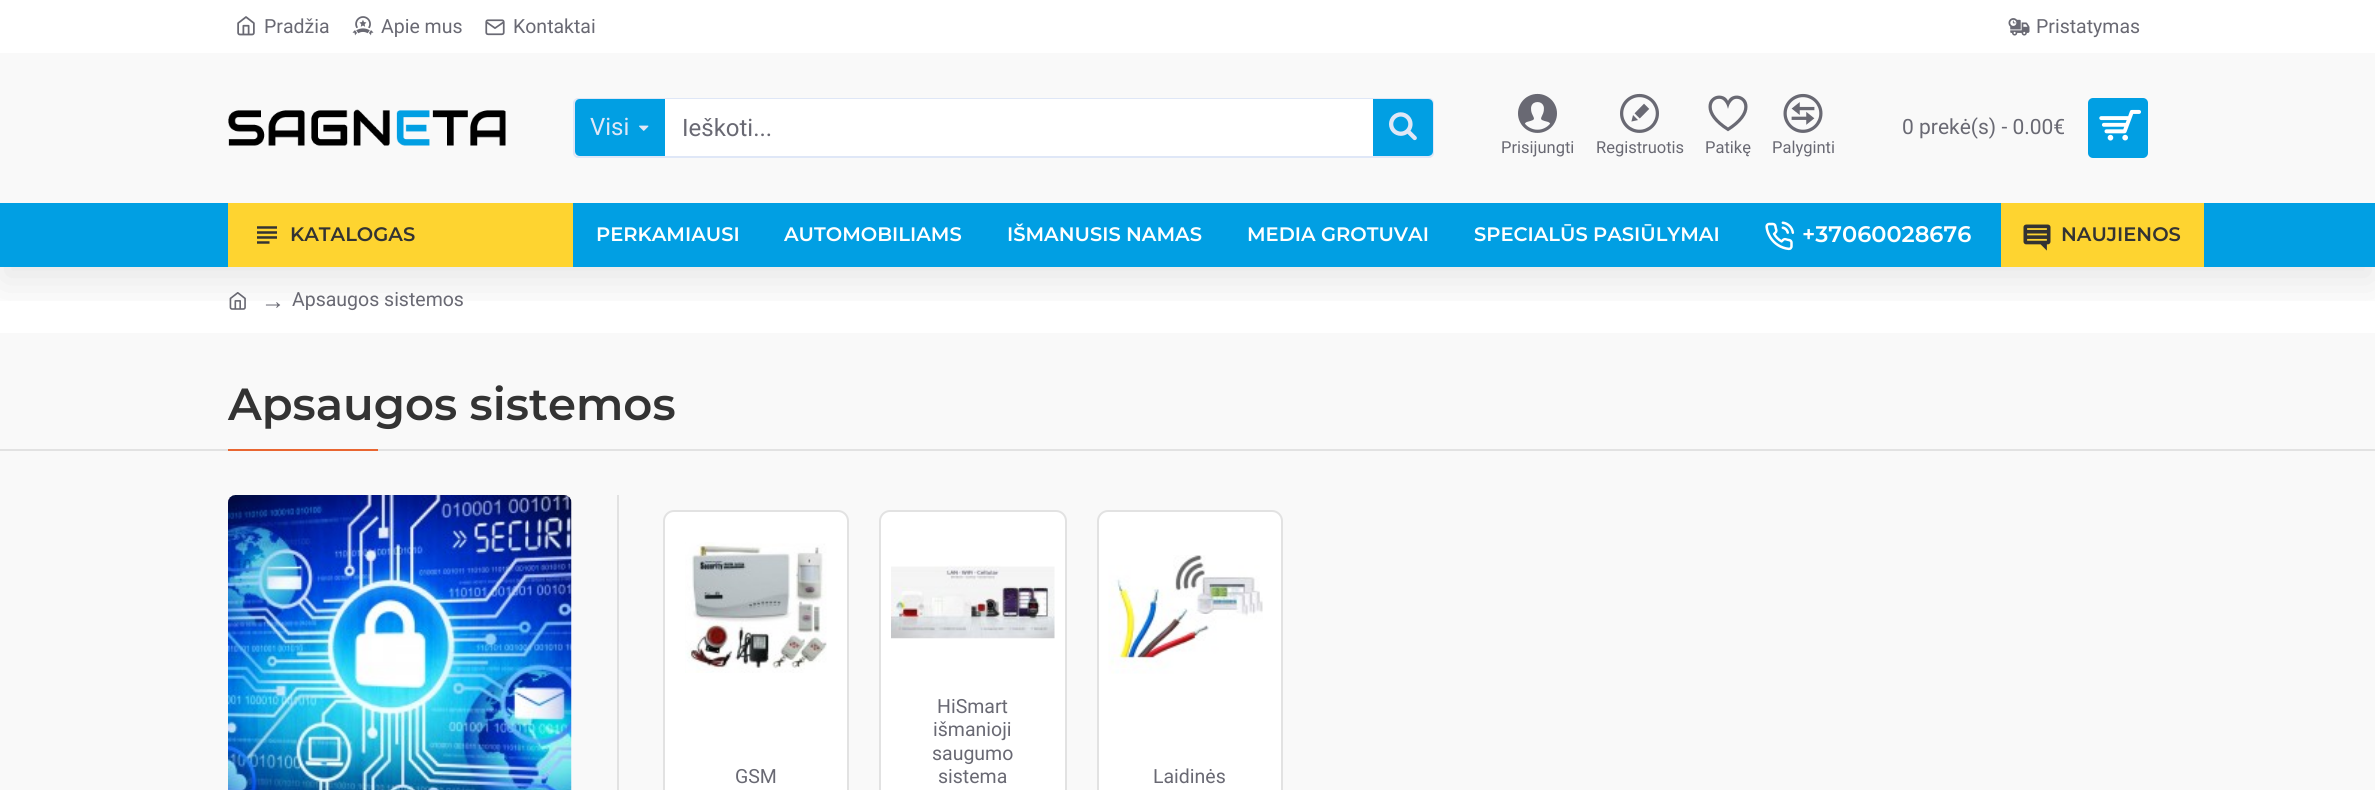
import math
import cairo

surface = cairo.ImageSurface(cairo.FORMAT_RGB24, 2375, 790)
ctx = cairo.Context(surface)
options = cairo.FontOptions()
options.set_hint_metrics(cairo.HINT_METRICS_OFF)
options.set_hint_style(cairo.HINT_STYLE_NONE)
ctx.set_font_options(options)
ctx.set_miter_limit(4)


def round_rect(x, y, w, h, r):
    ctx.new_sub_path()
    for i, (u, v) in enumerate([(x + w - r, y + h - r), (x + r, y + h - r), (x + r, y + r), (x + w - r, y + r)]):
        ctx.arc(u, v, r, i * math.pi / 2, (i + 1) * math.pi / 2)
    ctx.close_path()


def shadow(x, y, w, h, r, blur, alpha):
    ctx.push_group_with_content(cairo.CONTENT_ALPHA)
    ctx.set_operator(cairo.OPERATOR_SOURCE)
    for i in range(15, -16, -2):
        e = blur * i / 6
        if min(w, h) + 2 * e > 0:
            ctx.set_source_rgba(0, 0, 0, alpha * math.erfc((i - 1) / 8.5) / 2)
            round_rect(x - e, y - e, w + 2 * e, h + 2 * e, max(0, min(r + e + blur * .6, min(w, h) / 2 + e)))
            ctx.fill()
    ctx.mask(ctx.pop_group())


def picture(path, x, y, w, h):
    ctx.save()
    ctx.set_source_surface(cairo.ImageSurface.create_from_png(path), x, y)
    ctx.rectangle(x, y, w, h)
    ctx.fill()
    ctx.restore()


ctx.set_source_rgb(0.973, 0.973, 0.973)
ctx.paint()
ctx.set_source_rgb(1, 1, 1)
ctx.rectangle(0, 267, 2375, 66)
ctx.fill()
picture("img16.png", 229, 292, 17, 18)
ctx.save()
ctx.rectangle(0, 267, 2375, 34)
ctx.clip()
ctx.set_source_rgb(0, 0, 0)
shadow(0, 15, 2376, 267, 0, 22.5, 0.1)
ctx.restore()
ctx.rectangle(0, 0, 2375, 53)
ctx.fill()
picture("img1.png", 237, 16, 18, 20)
ctx.select_font_face("Roboto")
ctx.set_font_size(19.5)
ctx.set_source_rgb(0.412, 0.412, 0.451)
ctx.move_to(264, 33)
ctx.show_text("Pradžia")
picture("img2.png", 352, 16, 22, 20)
ctx.move_to(381, 33)
ctx.show_text("Apie mus")
picture("img3.png", 485, 19, 20, 17)
ctx.move_to(513, 33)
ctx.show_text("Kontaktai")
picture("img4.png", 2008, 18, 22, 18)
ctx.move_to(2036, 33)
ctx.show_text("Pristatymas")
picture("img5.png", 228, 109, 278, 37)
round_rect(574, 99, 859, 58, 4)
ctx.set_source_rgb(0.875, 0.906, 0.965)
ctx.stroke()
ctx.set_source_rgb(0.004, 0.624, 0.89)
ctx.new_path()
ctx.move_to(580, 99)
ctx.line_to(665, 99)
ctx.line_to(665, 156)
ctx.line_to(580, 156)
ctx.curve_to(577, 156, 575, 154, 575, 151)
ctx.line_to(575, 104)
ctx.curve_to(575, 101, 577, 99, 580, 99)
ctx.close_path()
ctx.fill()
ctx.set_font_size(24)
ctx.set_source_rgb(0.875, 0.906, 0.965)
ctx.move_to(590, 135)
ctx.show_text("Visi")
picture("img6.png", 639, 125, 10, 6)
ctx.set_source_rgb(1, 1, 1)
ctx.rectangle(665, 99, 708, 57)
ctx.fill()
ctx.set_source_rgb(0.412, 0.412, 0.451)
ctx.move_to(682, 136)
ctx.show_text("Ieškoti...")
ctx.set_source_rgb(0.004, 0.624, 0.89)
ctx.new_path()
ctx.move_to(1373, 99)
ctx.line_to(1428, 99)
ctx.curve_to(1431, 99, 1433, 101, 1433, 104)
ctx.line_to(1433, 151)
ctx.curve_to(1433, 154, 1431, 156, 1428, 156)
ctx.line_to(1373, 156)
ctx.close_path()
ctx.fill()
picture("img7.png", 1389, 112, 28, 29)
ctx.set_font_size(21)
ctx.set_source_rgb(0.412, 0.412, 0.451)
ctx.move_to(1902, 134)
ctx.show_text("0 prekė(s) - 0.00€")
ctx.set_source_rgb(0.004, 0.624, 0.89)
round_rect(2088, 98, 60, 60, 5)
ctx.fill()
picture("img8.png", 2099, 109, 42, 32)
picture("img9.png", 1518, 93, 39, 40)
ctx.set_font_size(16.5)
ctx.set_source_rgb(0.412, 0.412, 0.451)
ctx.move_to(1501, 153)
ctx.show_text("Prisijungti")
picture("img10.png", 1620, 93, 39, 40)
ctx.move_to(1596, 153)
ctx.show_text("Registruotis")
picture("img11.png", 1708, 95, 40, 37)
ctx.move_to(1705, 153)
ctx.show_text("Patikę")
picture("img12.png", 1783, 93, 40, 40)
ctx.move_to(1772, 153)
ctx.show_text("Palyginti")
ctx.set_source_rgb(0.004, 0.624, 0.89)
ctx.rectangle(0, 203, 2375, 64)
ctx.fill()
ctx.set_source_rgb(0.996, 0.831, 0.188)
ctx.rectangle(228, 203, 345, 64)
ctx.fill()
picture("img13.png", 257, 226, 20, 18)
ctx.select_font_face("Montserrat SemiBold")
ctx.set_font_size(19.5)
ctx.set_source_rgb(0.2, 0.2, 0.2)
ctx.move_to(290, 241)
ctx.show_text("KATALOGAS")
ctx.set_source_rgb(1, 1, 1)
ctx.move_to(596, 241)
ctx.show_text("PERKAMIAUSI")
ctx.move_to(784, 241)
ctx.show_text("AUTOMOBILIAMS")
ctx.move_to(1007, 241)
ctx.show_text("IŠMANUSIS NAMAS")
ctx.move_to(1247, 241)
ctx.show_text("MEDIA GROTUVAI")
ctx.move_to(1474, 241)
ctx.show_text("SPECIALŪS PASIŪLYMAI")
picture("img14.png", 1765, 221, 30, 30)
ctx.set_font_size(22.5)
ctx.move_to(1802, 242)
ctx.show_text("+37060028676")
ctx.set_source_rgb(0.996, 0.831, 0.188)
ctx.rectangle(2001, 203, 203, 64)
ctx.fill()
picture("img15.png", 2023, 224, 28, 27)
ctx.set_font_size(19.5)
ctx.set_source_rgb(0.2, 0.2, 0.2)
ctx.move_to(2061, 241)
ctx.show_text("NAUJIENOS")
ctx.select_font_face("Liberation Serif")
ctx.set_font_size(24)
ctx.set_source_rgb(0.412, 0.412, 0.451)
ctx.move_to(261, 309)
ctx.show_text("→")
ctx.select_font_face("Roboto")
ctx.set_font_size(19.5)
ctx.move_to(292, 306)
ctx.show_text("Apsaugos sistemos")
ctx.set_source_rgb(0.886, 0.886, 0.886)
ctx.rectangle(0, 449, 2375, 2)
ctx.fill()
ctx.select_font_face("Montserrat SemiBold")
ctx.set_font_size(45)
ctx.set_source_rgb(0.2, 0.2, 0.2)
ctx.move_to(228, 420)
ctx.show_text("Apsaugos sistemos")
ctx.set_source_rgb(0.914, 0.4, 0.192)
ctx.rectangle(228, 449, 150, 2)
ctx.fill()
ctx.set_source_rgb(0.886, 0.886, 0.886)
ctx.rectangle(617, 495, 2, 295)
ctx.fill()
picture("img17.png", 228, 495, 344, 295)
ctx.set_source_rgb(1, 1, 1)
round_rect(664, 511, 184, 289, 10)
ctx.fill_preserve()
ctx.set_source_rgb(0.886, 0.886, 0.886)
ctx.stroke()
picture("img18.png", 685, 542, 142, 131)
ctx.select_font_face("Roboto")
ctx.set_font_size(19.5)
ctx.set_source_rgb(0.412, 0.412, 0.451)
ctx.move_to(735, 783)
ctx.show_text("GSM")
ctx.set_source_rgb(1, 1, 1)
round_rect(880, 511, 186, 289, 10)
ctx.fill_preserve()
ctx.set_source_rgb(0.886, 0.886, 0.886)
ctx.stroke()
picture("img19.png", 891, 565, 164, 74)
ctx.set_source_rgb(0.412, 0.412, 0.451)
ctx.move_to(937, 713)
ctx.show_text("HiSmart")
ctx.move_to(933, 736)
ctx.show_text("išmanioji")
ctx.move_to(932, 760)
ctx.show_text("saugumo")
ctx.move_to(938, 783)
ctx.show_text("sistema")
ctx.set_source_rgb(1, 1, 1)
round_rect(1098, 511, 184, 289, 10)
ctx.fill_preserve()
ctx.set_source_rgb(0.886, 0.886, 0.886)
ctx.stroke()
picture("img20.png", 1108, 555, 155, 119)
ctx.set_source_rgb(0.412, 0.412, 0.451)
ctx.move_to(1153, 783)
ctx.show_text("Laidinės")
surface.write_to_png("page.png")
